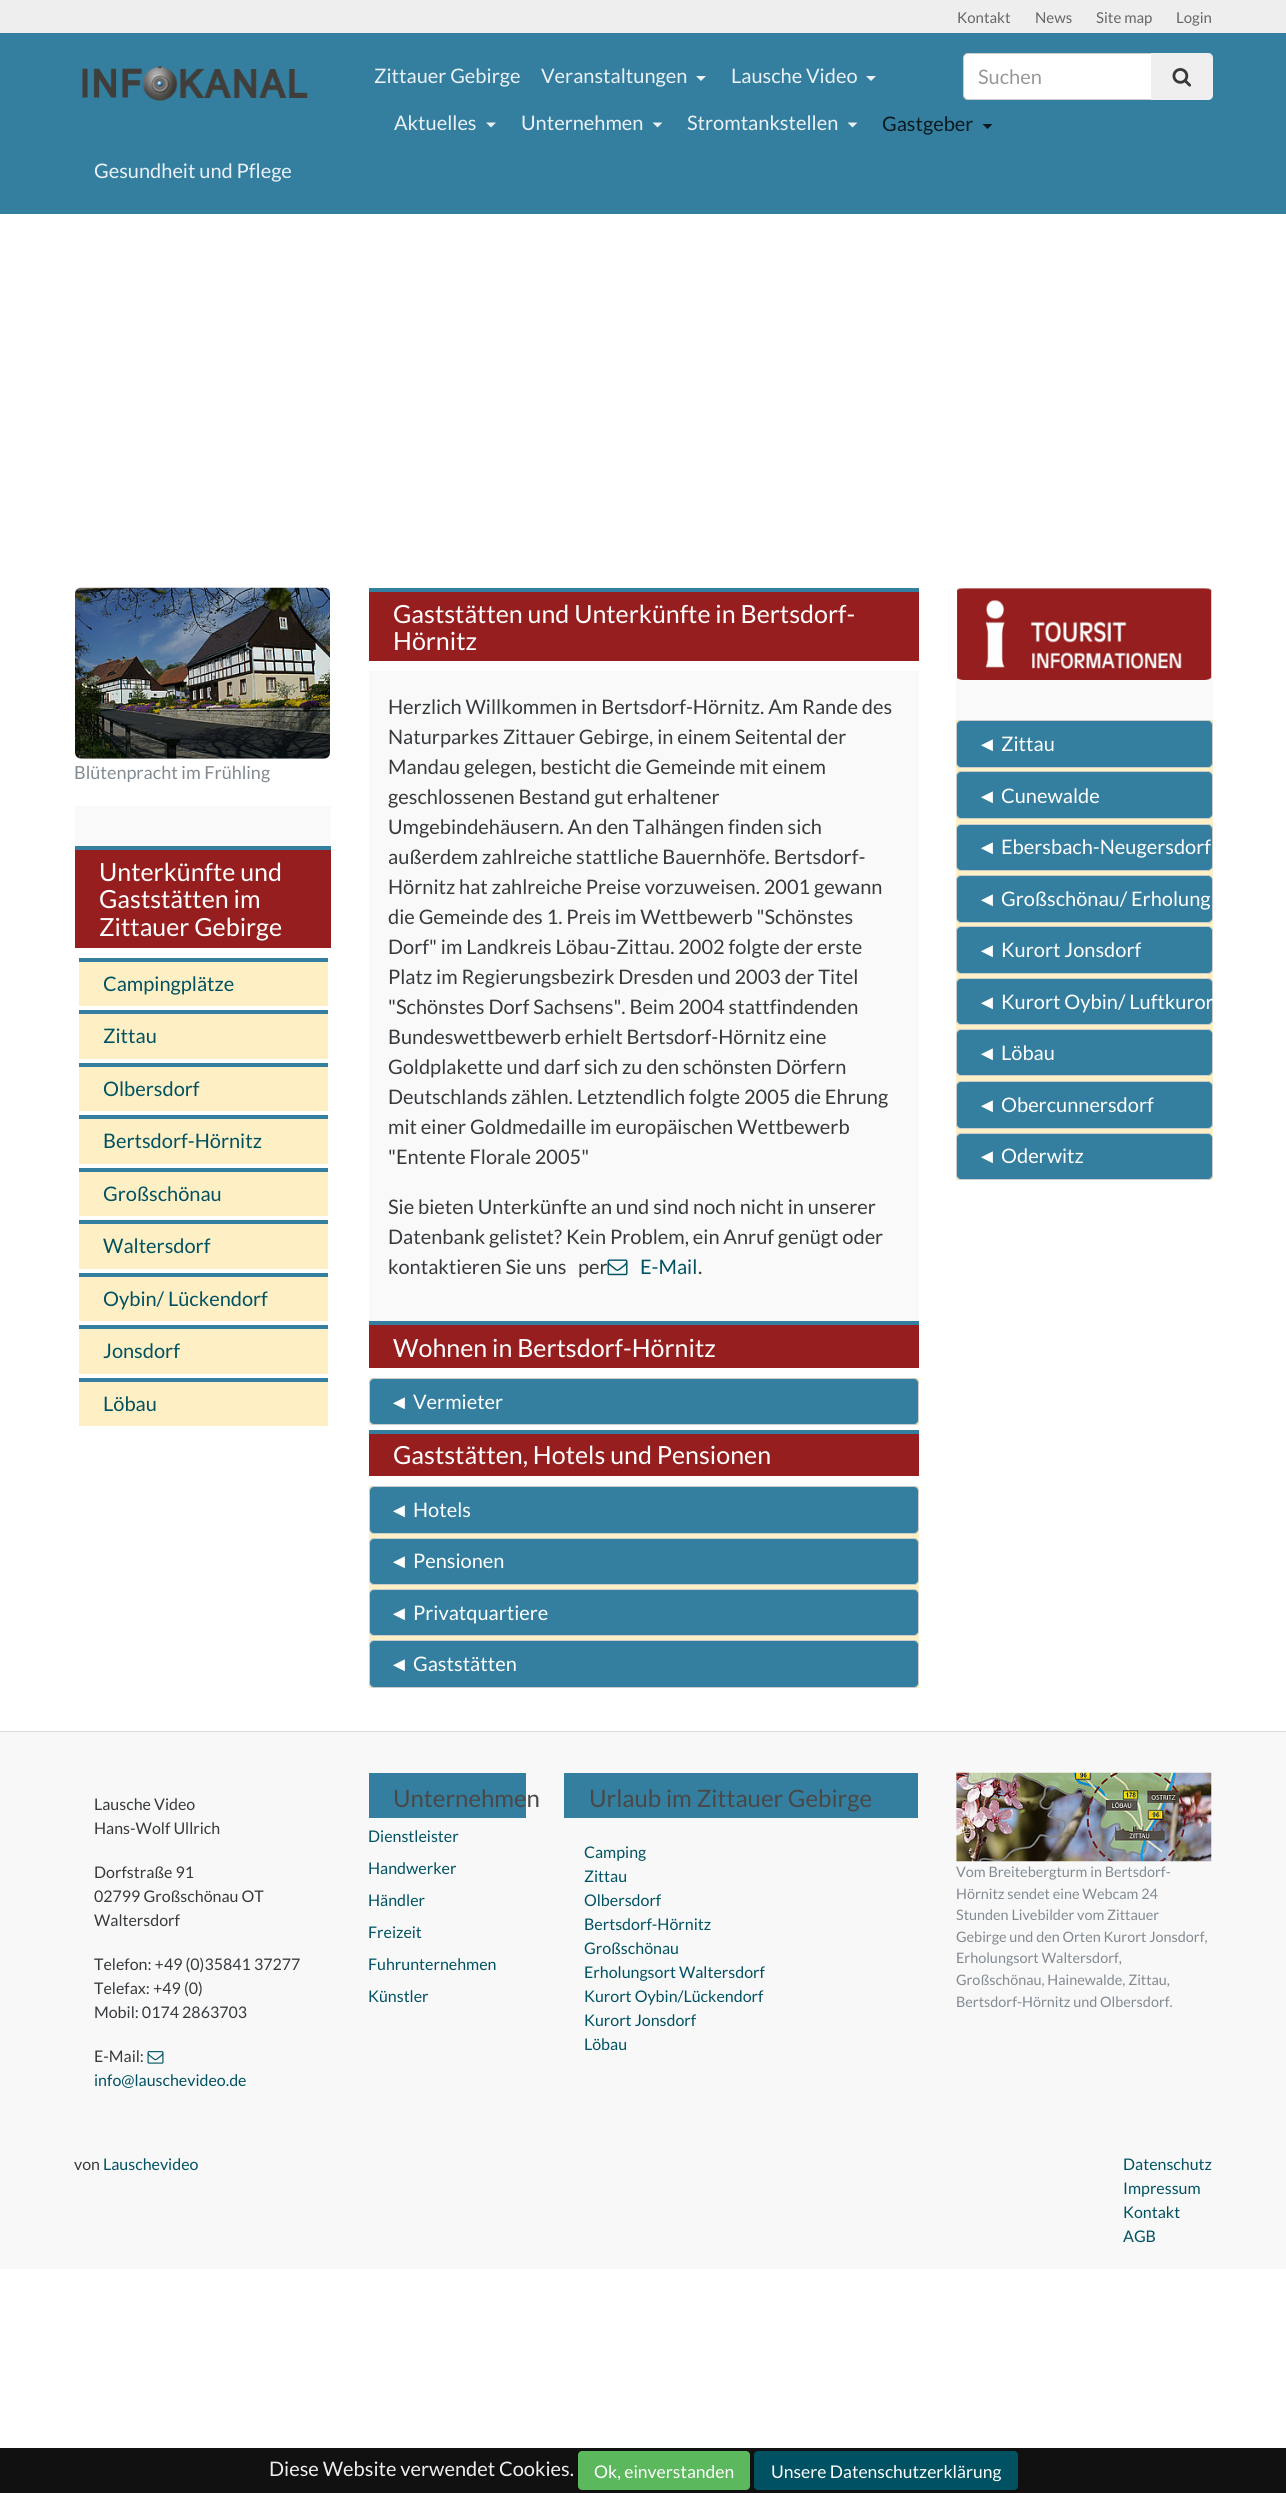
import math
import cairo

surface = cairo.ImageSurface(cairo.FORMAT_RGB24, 1286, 2493)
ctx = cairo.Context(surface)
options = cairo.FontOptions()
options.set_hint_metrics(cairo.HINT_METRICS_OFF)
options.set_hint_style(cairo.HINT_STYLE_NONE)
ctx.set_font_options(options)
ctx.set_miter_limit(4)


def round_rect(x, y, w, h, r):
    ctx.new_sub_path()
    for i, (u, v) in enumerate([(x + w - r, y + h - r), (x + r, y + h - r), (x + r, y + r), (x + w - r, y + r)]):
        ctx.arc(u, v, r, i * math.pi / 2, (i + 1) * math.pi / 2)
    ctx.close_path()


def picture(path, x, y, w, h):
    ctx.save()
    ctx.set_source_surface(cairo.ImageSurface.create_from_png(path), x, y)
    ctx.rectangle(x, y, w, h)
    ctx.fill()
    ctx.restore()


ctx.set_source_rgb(1, 1, 1)
ctx.paint()
ctx.set_source_rgb(0.933, 0.933, 0.933)
ctx.rectangle(0, 0, 1286, 33)
ctx.fill()
ctx.select_font_face("Lato")
ctx.set_font_size(15)
ctx.set_source_rgb(0.4, 0.4, 0.4)
ctx.move_to(957, 23)
ctx.show_text("Kontakt")
ctx.move_to(1035, 23)
ctx.show_text("News")
ctx.move_to(1096, 23)
ctx.show_text("Site map")
ctx.move_to(1176, 23)
ctx.show_text("Login")
ctx.set_source_rgb(0.204, 0.498, 0.624)
ctx.rectangle(0, 33, 1286, 181)
ctx.fill()
picture("img1.png", 82, 65, 226, 36)
ctx.set_font_size(20)
ctx.set_source_rgb(0.918, 0.945, 0.961)
ctx.move_to(374, 83)
ctx.show_text("Zittauer Gebirge")
ctx.move_to(541, 83)
ctx.show_text("Veranstaltungen")
ctx.new_path()
ctx.move_to(696, 76)
ctx.line_to(706, 76)
ctx.line_to(701, 81)
ctx.close_path()
ctx.fill()
ctx.move_to(731, 83)
ctx.show_text("Lausche Video")
ctx.new_path()
ctx.move_to(866, 76)
ctx.line_to(876, 76)
ctx.line_to(871, 81)
ctx.close_path()
ctx.fill()
ctx.move_to(394, 130)
ctx.show_text("Aktuelles")
ctx.new_path()
ctx.move_to(486, 122.5)
ctx.line_to(496, 122.5)
ctx.line_to(491, 127.5)
ctx.close_path()
ctx.fill()
ctx.move_to(521, 130)
ctx.show_text("Unternehmen")
ctx.new_path()
ctx.move_to(652.5, 122.5)
ctx.line_to(662.5, 122.5)
ctx.line_to(657.5, 127.5)
ctx.close_path()
ctx.fill()
ctx.move_to(687, 130)
ctx.show_text("Stromtankstellen")
ctx.new_path()
ctx.move_to(847.5, 122.5)
ctx.line_to(857.5, 122.5)
ctx.line_to(852.5, 127.5)
ctx.close_path()
ctx.fill()
ctx.set_source_rgb(0.039, 0.098, 0.125)
ctx.move_to(882, 131)
ctx.show_text("Gastgeber")
ctx.new_path()
ctx.move_to(982.5, 124)
ctx.line_to(992.5, 124)
ctx.line_to(987.5, 129)
ctx.close_path()
ctx.fill()
ctx.set_source_rgb(0.918, 0.945, 0.961)
ctx.move_to(94, 178)
ctx.show_text("Gesundheit und Pflege")
ctx.set_source_rgb(1, 1, 1)
ctx.new_path()
ctx.move_to(968, 53.5)
ctx.line_to(1152.5, 53.5)
ctx.line_to(1152.5, 99.5)
ctx.line_to(968, 99.5)
ctx.curve_to(965.5, 99.5, 963.5, 97.5, 963.5, 95)
ctx.line_to(963.5, 58)
ctx.curve_to(963.5, 55.5, 965.5, 53.5, 968, 53.5)
ctx.close_path()
ctx.fill_preserve()
ctx.set_source_rgb(0.8, 0.8, 0.8)
ctx.set_line_width(1)
ctx.stroke()
ctx.set_source_rgb(0.6, 0.6, 0.6)
ctx.move_to(978, 84)
ctx.show_text("Suchen")
ctx.set_source_rgb(0.937, 0.937, 0.937)
ctx.new_path()
ctx.move_to(1151, 53)
ctx.line_to(1208, 53)
ctx.curve_to(1211, 53, 1213, 55, 1213, 58)
ctx.line_to(1213, 95)
ctx.curve_to(1213, 98, 1211, 100, 1208, 100)
ctx.line_to(1151, 100)
ctx.close_path()
ctx.fill()
picture("img2.png", 1172, 68, 20, 19)
picture("img3.png", 75, 587, 255, 172)
ctx.set_font_size(18)
ctx.set_source_rgb(0.506, 0.541, 0.569)
ctx.move_to(74, 779)
ctx.show_text("Blütenpracht im Frühling")
ctx.set_source_rgb(0.973, 0.973, 0.973)
ctx.rectangle(75, 806, 256, 40)
ctx.fill()
ctx.set_source_rgb(0.592, 0.118, 0.118)
ctx.rectangle(75, 850, 256, 98)
ctx.fill()
ctx.set_source_rgb(0.204, 0.498, 0.624)
ctx.rectangle(75, 846, 256, 4)
ctx.fill()
ctx.set_font_size(25)
ctx.set_source_rgb(1, 1, 1)
ctx.move_to(99, 881)
ctx.show_text("Unterkünfte und")
ctx.move_to(99, 908)
ctx.show_text("Gaststätten im")
ctx.move_to(99, 936)
ctx.show_text("Zittauer Gebirge")
ctx.set_source_rgb(0.996, 0.937, 0.769)
ctx.rectangle(79, 962, 249, 44)
ctx.fill()
ctx.set_source_rgb(0.204, 0.498, 0.624)
ctx.rectangle(79, 958, 249, 4)
ctx.fill()
ctx.set_font_size(20)
ctx.set_source_rgb(0, 0.322, 0.384)
ctx.move_to(103, 991)
ctx.show_text("Campingplätze")
ctx.set_source_rgb(0.996, 0.937, 0.769)
ctx.rectangle(79, 1014, 249, 45)
ctx.fill()
ctx.set_source_rgb(0.204, 0.498, 0.624)
ctx.rectangle(79, 1010, 249, 4)
ctx.fill()
ctx.set_source_rgb(0, 0.322, 0.384)
ctx.move_to(103, 1043)
ctx.show_text("Zittau")
ctx.set_source_rgb(0.996, 0.937, 0.769)
ctx.rectangle(79, 1067, 249, 44)
ctx.fill()
ctx.set_source_rgb(0.204, 0.498, 0.624)
ctx.rectangle(79, 1063, 249, 4)
ctx.fill()
ctx.set_source_rgb(0, 0.322, 0.384)
ctx.move_to(103, 1096)
ctx.show_text("Olbersdorf")
ctx.set_source_rgb(0.996, 0.937, 0.769)
ctx.rectangle(79, 1119, 249, 45)
ctx.fill()
ctx.set_source_rgb(0.204, 0.498, 0.624)
ctx.rectangle(79, 1115, 249, 4)
ctx.fill()
ctx.set_source_rgb(0, 0.322, 0.384)
ctx.move_to(103, 1148)
ctx.show_text("Bertsdorf-Hörnitz")
ctx.set_source_rgb(0.996, 0.937, 0.769)
ctx.rectangle(79, 1172, 249, 44)
ctx.fill()
ctx.set_source_rgb(0.204, 0.498, 0.624)
ctx.rectangle(79, 1168, 249, 4)
ctx.fill()
ctx.set_source_rgb(0, 0.322, 0.384)
ctx.move_to(103, 1201)
ctx.show_text("Großschönau")
ctx.set_source_rgb(0.996, 0.937, 0.769)
ctx.rectangle(79, 1224, 249, 45)
ctx.fill()
ctx.set_source_rgb(0.204, 0.498, 0.624)
ctx.rectangle(79, 1220, 249, 4)
ctx.fill()
ctx.set_source_rgb(0, 0.322, 0.384)
ctx.move_to(103, 1253)
ctx.show_text("Waltersdorf")
ctx.set_source_rgb(0.996, 0.937, 0.769)
ctx.rectangle(79, 1277, 249, 44)
ctx.fill()
ctx.set_source_rgb(0.204, 0.498, 0.624)
ctx.rectangle(79, 1273, 249, 4)
ctx.fill()
ctx.set_source_rgb(0, 0.322, 0.384)
ctx.move_to(103, 1306)
ctx.show_text("Oybin/ Lückendorf")
ctx.set_source_rgb(0.996, 0.937, 0.769)
ctx.rectangle(79, 1329, 249, 45)
ctx.fill()
ctx.set_source_rgb(0.204, 0.498, 0.624)
ctx.rectangle(79, 1325, 249, 4)
ctx.fill()
ctx.set_source_rgb(0, 0.322, 0.384)
ctx.move_to(103, 1358)
ctx.show_text("Jonsdorf")
ctx.set_source_rgb(0.996, 0.937, 0.769)
ctx.rectangle(79, 1382, 249, 44)
ctx.fill()
ctx.set_source_rgb(0.204, 0.498, 0.624)
ctx.rectangle(79, 1378, 249, 4)
ctx.fill()
ctx.set_source_rgb(0, 0.322, 0.384)
ctx.move_to(103, 1411)
ctx.show_text("Löbau")
ctx.set_source_rgb(0.592, 0.118, 0.118)
ctx.rectangle(369, 592, 550, 69)
ctx.fill()
ctx.set_source_rgb(0.204, 0.498, 0.624)
ctx.rectangle(369, 588, 550, 4)
ctx.fill()
ctx.set_font_size(25)
ctx.set_source_rgb(1, 1, 1)
ctx.move_to(393, 623)
ctx.show_text("Gaststätten und Unterkünfte in Bertsdorf-")
ctx.move_to(393, 650)
ctx.show_text("Hörnitz")
ctx.set_source_rgb(0.973, 0.973, 0.973)
ctx.rectangle(369, 671, 550, 650)
ctx.fill()
ctx.set_font_size(20)
ctx.set_source_rgb(0.216, 0.227, 0.235)
ctx.move_to(388, 714)
ctx.show_text("Herzlich Willkommen in Bertsdorf-Hörnitz. Am Rande des")
ctx.move_to(388, 744)
ctx.show_text("Naturparkes Zittauer Gebirge, in einem Seitental der")
ctx.move_to(388, 774)
ctx.show_text("Mandau gelegen, besticht die Gemeinde mit einem")
ctx.move_to(388, 804)
ctx.show_text("geschlossenen Bestand gut erhaltener")
ctx.move_to(388, 834)
ctx.show_text("Umgebindehäusern. An den Talhängen finden sich")
ctx.move_to(388, 864)
ctx.show_text("außerdem zahlreiche stattliche Bauernhöfe. Bertsdorf-")
ctx.move_to(388, 894)
ctx.show_text("Hörnitz hat zahlreiche Preise vorzuweisen. 2001 gewann")
ctx.move_to(388, 924)
ctx.show_text("die Gemeinde des 1. Preis im Wettbewerb \"Schönstes")
ctx.move_to(388, 954)
ctx.show_text("Dorf\" im Landkreis Löbau-Zittau. 2002 folgte der erste")
ctx.move_to(388, 984)
ctx.show_text("Platz im Regierungsbezirk Dresden und 2003 der Titel")
ctx.move_to(388, 1014)
ctx.show_text("\"Schönstes Dorf Sachsens\". Beim 2004 stattfindenden")
ctx.move_to(388, 1044)
ctx.show_text("Bundeswettbewerb erhielt Bertsdorf-Hörnitz eine")
ctx.move_to(388, 1074)
ctx.show_text("Goldplakette und darf sich zu den schönsten Dörfern")
ctx.move_to(388, 1104)
ctx.show_text("Deutschlands zählen. Letztendlich folgte 2005 die Ehrung")
ctx.move_to(388, 1134)
ctx.show_text("mit einer Goldmedaille im europäischen Wettbewerb")
ctx.move_to(388, 1164)
ctx.show_text("\"Entente Florale 2005\"")
ctx.move_to(388, 1214)
ctx.show_text("Sie bieten Unterkünfte an und sind noch nicht in unserer")
ctx.move_to(388, 1244)
ctx.show_text("Datenbank gelistet? Kein Problem, ein Anruf genügt oder")
ctx.move_to(388, 1274)
ctx.show_text("kontaktieren Sie uns   per")
picture("img4.png", 607, 1259, 21, 17)
ctx.set_source_rgb(0, 0.322, 0.384)
ctx.move_to(640, 1274)
ctx.show_text("E-Mail")
ctx.set_source_rgb(0.216, 0.227, 0.235)
ctx.move_to(698, 1274)
ctx.show_text(".")
ctx.set_source_rgb(0.592, 0.118, 0.118)
ctx.rectangle(369, 1325, 550, 43)
ctx.fill()
ctx.set_source_rgb(0.204, 0.498, 0.624)
ctx.rectangle(369, 1321, 550, 4)
ctx.fill()
ctx.set_font_size(25)
ctx.set_source_rgb(1, 1, 1)
ctx.move_to(393, 1357)
ctx.show_text("Wohnen in Bertsdorf-Hörnitz")
ctx.set_source_rgb(0.996, 0.937, 0.769)
ctx.rectangle(369, 1378, 550, 47)
ctx.fill()
ctx.set_source_rgb(0.204, 0.498, 0.624)
round_rect(369.5, 1378.5, 549, 46, 4.5)
ctx.fill_preserve()
ctx.set_source_rgb(0.8, 0.8, 0.8)
ctx.stroke()
ctx.select_font_face("Liberation Sans")
ctx.set_font_size(20)
ctx.set_source_rgb(1, 1, 1)
ctx.move_to(389, 1409)
ctx.show_text("◄")
ctx.select_font_face("Lato")
ctx.move_to(413, 1409)
ctx.show_text("Vermieter")
ctx.set_source_rgb(0.592, 0.118, 0.118)
ctx.rectangle(369, 1434, 550, 42)
ctx.fill()
ctx.set_source_rgb(0.204, 0.498, 0.624)
ctx.rectangle(369, 1430, 550, 4)
ctx.fill()
ctx.set_font_size(25)
ctx.set_source_rgb(1, 1, 1)
ctx.move_to(393, 1464)
ctx.show_text("Gaststätten, Hotels und Pensionen")
ctx.set_source_rgb(0.996, 0.937, 0.769)
ctx.rectangle(369, 1486, 550, 202)
ctx.fill()
ctx.set_source_rgb(0.204, 0.498, 0.624)
round_rect(369.5, 1486.5, 549, 47, 4.5)
ctx.fill_preserve()
ctx.set_source_rgb(0.8, 0.8, 0.8)
ctx.stroke()
ctx.select_font_face("Liberation Sans")
ctx.set_font_size(20)
ctx.set_source_rgb(1, 1, 1)
ctx.move_to(389, 1517)
ctx.show_text("◄")
ctx.select_font_face("Lato")
ctx.move_to(413, 1517)
ctx.show_text("Hotels")
ctx.set_source_rgb(0.204, 0.498, 0.624)
round_rect(369.5, 1538.5, 549, 46, 4.5)
ctx.fill_preserve()
ctx.set_source_rgb(0.8, 0.8, 0.8)
ctx.stroke()
ctx.select_font_face("Liberation Sans")
ctx.set_source_rgb(1, 1, 1)
ctx.move_to(389, 1568)
ctx.show_text("◄")
ctx.select_font_face("Lato")
ctx.move_to(413, 1568)
ctx.show_text("Pensionen")
ctx.set_source_rgb(0.204, 0.498, 0.624)
round_rect(369.5, 1589.5, 549, 46, 4.5)
ctx.fill_preserve()
ctx.set_source_rgb(0.8, 0.8, 0.8)
ctx.stroke()
ctx.select_font_face("Liberation Sans")
ctx.set_source_rgb(1, 1, 1)
ctx.move_to(389, 1620)
ctx.show_text("◄")
ctx.select_font_face("Lato")
ctx.move_to(413, 1620)
ctx.show_text("Privatquartiere")
ctx.set_source_rgb(0.204, 0.498, 0.624)
round_rect(369.5, 1640.5, 549, 47, 4.5)
ctx.fill_preserve()
ctx.set_source_rgb(0.8, 0.8, 0.8)
ctx.stroke()
ctx.select_font_face("Liberation Sans")
ctx.set_source_rgb(1, 1, 1)
ctx.move_to(389, 1671)
ctx.show_text("◄")
ctx.select_font_face("Lato")
ctx.move_to(413, 1671)
ctx.show_text("Gaststätten")
picture("img5.png", 957, 588, 255, 92)
ctx.set_source_rgb(0.973, 0.973, 0.973)
ctx.rectangle(956, 680, 257, 40)
ctx.fill()
ctx.set_source_rgb(0.996, 0.937, 0.769)
ctx.rectangle(956, 720, 257, 460)
ctx.fill()
ctx.set_source_rgb(0.204, 0.498, 0.624)
round_rect(956.5, 720.5, 256, 47, 4.5)
ctx.fill_preserve()
ctx.set_source_rgb(0.8, 0.8, 0.8)
ctx.stroke()
ctx.select_font_face("Liberation Sans")
ctx.set_source_rgb(1, 1, 1)
ctx.move_to(977, 751)
ctx.show_text("◄")
ctx.select_font_face("Lato")
ctx.move_to(1001, 751)
ctx.show_text("Zittau")
ctx.set_source_rgb(0.204, 0.498, 0.624)
round_rect(956.5, 771.5, 256, 47, 4.5)
ctx.fill_preserve()
ctx.set_source_rgb(0.8, 0.8, 0.8)
ctx.stroke()
ctx.select_font_face("Liberation Sans")
ctx.set_source_rgb(1, 1, 1)
ctx.move_to(977, 803)
ctx.show_text("◄")
ctx.select_font_face("Lato")
ctx.move_to(1001, 803)
ctx.show_text("Cunewalde")
ctx.set_source_rgb(0.204, 0.498, 0.624)
round_rect(956.5, 824.5, 256, 46, 4.5)
ctx.fill_preserve()
ctx.set_source_rgb(0.8, 0.8, 0.8)
ctx.stroke()
ctx.select_font_face("Liberation Sans")
ctx.set_source_rgb(1, 1, 1)
ctx.move_to(977, 854)
ctx.show_text("◄")
ctx.select_font_face("Lato")
ctx.move_to(1001, 854)
ctx.show_text("Ebersbach-Neugersdorf")
ctx.set_source_rgb(0.204, 0.498, 0.624)
round_rect(956.5, 875.5, 256, 47, 4.5)
ctx.fill_preserve()
ctx.set_source_rgb(0.8, 0.8, 0.8)
ctx.stroke()
ctx.select_font_face("Liberation Sans")
ctx.set_source_rgb(1, 1, 1)
ctx.move_to(977, 906)
ctx.show_text("◄")
ctx.select_font_face("Lato")
ctx.move_to(1001, 906)
ctx.show_text("Großschönau/ Erholung")
ctx.set_source_rgb(0.204, 0.498, 0.624)
round_rect(956.5, 926.5, 256, 47, 4.5)
ctx.fill_preserve()
ctx.set_source_rgb(0.8, 0.8, 0.8)
ctx.stroke()
ctx.select_font_face("Liberation Sans")
ctx.set_source_rgb(1, 1, 1)
ctx.move_to(977, 957)
ctx.show_text("◄")
ctx.select_font_face("Lato")
ctx.move_to(1001, 957)
ctx.show_text("Kurort Jonsdorf")
ctx.set_source_rgb(0.204, 0.498, 0.624)
round_rect(956.5, 978.5, 256, 46, 4.5)
ctx.fill_preserve()
ctx.set_source_rgb(0.8, 0.8, 0.8)
ctx.stroke()
ctx.select_font_face("Liberation Sans")
ctx.set_source_rgb(1, 1, 1)
ctx.move_to(977, 1009)
ctx.show_text("◄")
ctx.select_font_face("Lato")
ctx.move_to(1001, 1009)
ctx.show_text("Kurort Oybin/ Luftkuror")
ctx.set_source_rgb(0.204, 0.498, 0.624)
round_rect(956.5, 1029.5, 256, 46, 4.5)
ctx.fill_preserve()
ctx.set_source_rgb(0.8, 0.8, 0.8)
ctx.stroke()
ctx.select_font_face("Liberation Sans")
ctx.set_source_rgb(1, 1, 1)
ctx.move_to(977, 1060)
ctx.show_text("◄")
ctx.select_font_face("Lato")
ctx.move_to(1001, 1060)
ctx.show_text("Löbau")
ctx.set_source_rgb(0.204, 0.498, 0.624)
round_rect(956.5, 1081.5, 256, 47, 4.5)
ctx.fill_preserve()
ctx.set_source_rgb(0.8, 0.8, 0.8)
ctx.stroke()
ctx.select_font_face("Liberation Sans")
ctx.set_source_rgb(1, 1, 1)
ctx.move_to(977, 1112)
ctx.show_text("◄")
ctx.select_font_face("Lato")
ctx.move_to(1001, 1112)
ctx.show_text("Obercunnersdorf")
ctx.set_source_rgb(0.204, 0.498, 0.624)
round_rect(956.5, 1133.5, 256, 46, 4.5)
ctx.fill_preserve()
ctx.set_source_rgb(0.8, 0.8, 0.8)
ctx.stroke()
ctx.select_font_face("Liberation Sans")
ctx.set_source_rgb(1, 1, 1)
ctx.move_to(977, 1163)
ctx.show_text("◄")
ctx.select_font_face("Lato")
ctx.move_to(1001, 1163)
ctx.show_text("Oderwitz")
ctx.set_source_rgb(0.969, 0.969, 0.969)
ctx.rectangle(0, 1732, 1286, 537)
ctx.fill()
ctx.set_source_rgb(0.867, 0.867, 0.867)
ctx.rectangle(0, 1731, 1286, 1)
ctx.fill()
ctx.set_font_size(16)
ctx.set_source_rgb(0.216, 0.227, 0.235)
ctx.move_to(94, 1810)
ctx.show_text("Lausche Video")
ctx.move_to(94, 1834)
ctx.show_text("Hans-Wolf Ullrich")
ctx.move_to(94, 1878)
ctx.show_text("Dorfstraße 91")
ctx.move_to(94, 1902)
ctx.show_text("02799 Großschönau OT")
ctx.move_to(94, 1926)
ctx.show_text("Waltersdorf")
ctx.move_to(94, 1970)
ctx.show_text("Telefon: +49 (0)35841 37277")
ctx.move_to(94, 1994)
ctx.show_text("Telefax: +49 (0)")
ctx.move_to(94, 2018)
ctx.show_text("Mobil: 0174 2863703")
ctx.move_to(94, 2062)
ctx.show_text("E-Mail:")
picture("img6.png", 147, 2051, 17, 13)
ctx.set_source_rgb(0, 0.322, 0.384)
ctx.move_to(94, 2086)
ctx.show_text("info@lauschevideo.de")
ctx.set_source_rgb(0.204, 0.498, 0.624)
ctx.rectangle(369, 1773, 157, 45)
ctx.fill()
ctx.set_font_size(24)
ctx.set_source_rgb(0.282, 0.282, 0.282)
ctx.move_to(393, 1807)
ctx.show_text("Unternehmen")
ctx.set_font_size(16)
ctx.set_source_rgb(0, 0.322, 0.384)
ctx.move_to(368, 1842)
ctx.show_text("Dienstleister")
ctx.move_to(368, 1874)
ctx.show_text("Handwerker")
ctx.move_to(368, 1906)
ctx.show_text("Händler")
ctx.move_to(368, 1938)
ctx.show_text("Freizeit")
ctx.move_to(368, 1970)
ctx.show_text("Fuhrunternehmen")
ctx.move_to(368, 2002)
ctx.show_text("Künstler")
ctx.set_source_rgb(0.204, 0.498, 0.624)
ctx.rectangle(564, 1773, 354, 45)
ctx.fill()
ctx.set_font_size(24)
ctx.set_source_rgb(0.282, 0.282, 0.282)
ctx.move_to(589, 1807)
ctx.show_text("Urlaub im Zittauer Gebirge")
ctx.set_font_size(16)
ctx.set_source_rgb(0, 0.322, 0.384)
ctx.move_to(584, 1858)
ctx.show_text("Camping")
ctx.move_to(584, 1882)
ctx.show_text("Zittau")
ctx.move_to(584, 1906)
ctx.show_text("Olbersdorf")
ctx.move_to(584, 1930)
ctx.show_text("Bertsdorf-Hörnitz")
ctx.move_to(584, 1954)
ctx.show_text("Großschönau")
ctx.move_to(584, 1978)
ctx.show_text("Erholungsort Waltersdorf")
ctx.move_to(584, 2002)
ctx.show_text("Kurort Oybin/Lückendorf")
ctx.move_to(584, 2026)
ctx.show_text("Kurort Jonsdorf")
ctx.move_to(584, 2050)
ctx.show_text("Löbau")
picture("img7.png", 956, 1772, 256, 90)
ctx.set_font_size(14.4)
ctx.set_source_rgb(0.506, 0.541, 0.569)
ctx.move_to(956, 1877)
ctx.show_text("Vom Breitebergturm in Bertsdorf-")
ctx.move_to(956, 1899)
ctx.show_text("Hörnitz sendet eine Webcam 24")
ctx.move_to(956, 1920)
ctx.show_text("Stunden Livebilder vom Zittauer")
ctx.move_to(956, 1942)
ctx.show_text("Gebirge und den Orten Kurort Jonsdorf,")
ctx.move_to(956, 1963)
ctx.show_text("Erholungsort Waltersdorf,")
ctx.move_to(956, 1985)
ctx.show_text("Großschönau, Hainewalde, Zittau,")
ctx.move_to(956, 2007)
ctx.show_text("Bertsdorf-Hörnitz und Olbersdorf.")
ctx.set_font_size(16)
ctx.set_source_rgb(0.216, 0.227, 0.235)
ctx.move_to(74, 2170)
ctx.show_text("von")
ctx.set_source_rgb(0, 0.322, 0.384)
ctx.move_to(103, 2170)
ctx.show_text("Lauschevideo")
ctx.move_to(1123, 2170)
ctx.show_text("Datenschutz")
ctx.move_to(1123, 2194)
ctx.show_text("Impressum")
ctx.move_to(1123, 2218)
ctx.show_text("Kontakt")
ctx.move_to(1123, 2242)
ctx.show_text("AGB")
ctx.set_source_rgb(0.067, 0.067, 0.067)
ctx.rectangle(0, 2448, 1286, 45)
ctx.fill()
ctx.set_font_size(20)
ctx.set_source_rgb(0.933, 0.933, 0.933)
ctx.move_to(269, 2476)
ctx.show_text("Diese Website verwendet Cookies.")
ctx.set_source_rgb(0.361, 0.722, 0.361)
round_rect(578.5, 2451.5, 171, 38, 3.5)
ctx.fill_preserve()
ctx.stroke()
ctx.set_font_size(17.5)
ctx.set_source_rgb(1, 1, 1)
ctx.move_to(594, 2478)
ctx.show_text("Ok, einverstanden")
ctx.set_source_rgb(0, 0.322, 0.384)
round_rect(754.5, 2451.5, 263, 38, 3.5)
ctx.fill_preserve()
ctx.stroke()
ctx.set_source_rgb(1, 1, 1)
ctx.move_to(771, 2478)
ctx.show_text("Unsere Datenschutzerklärung")
surface.write_to_png("page.png")
